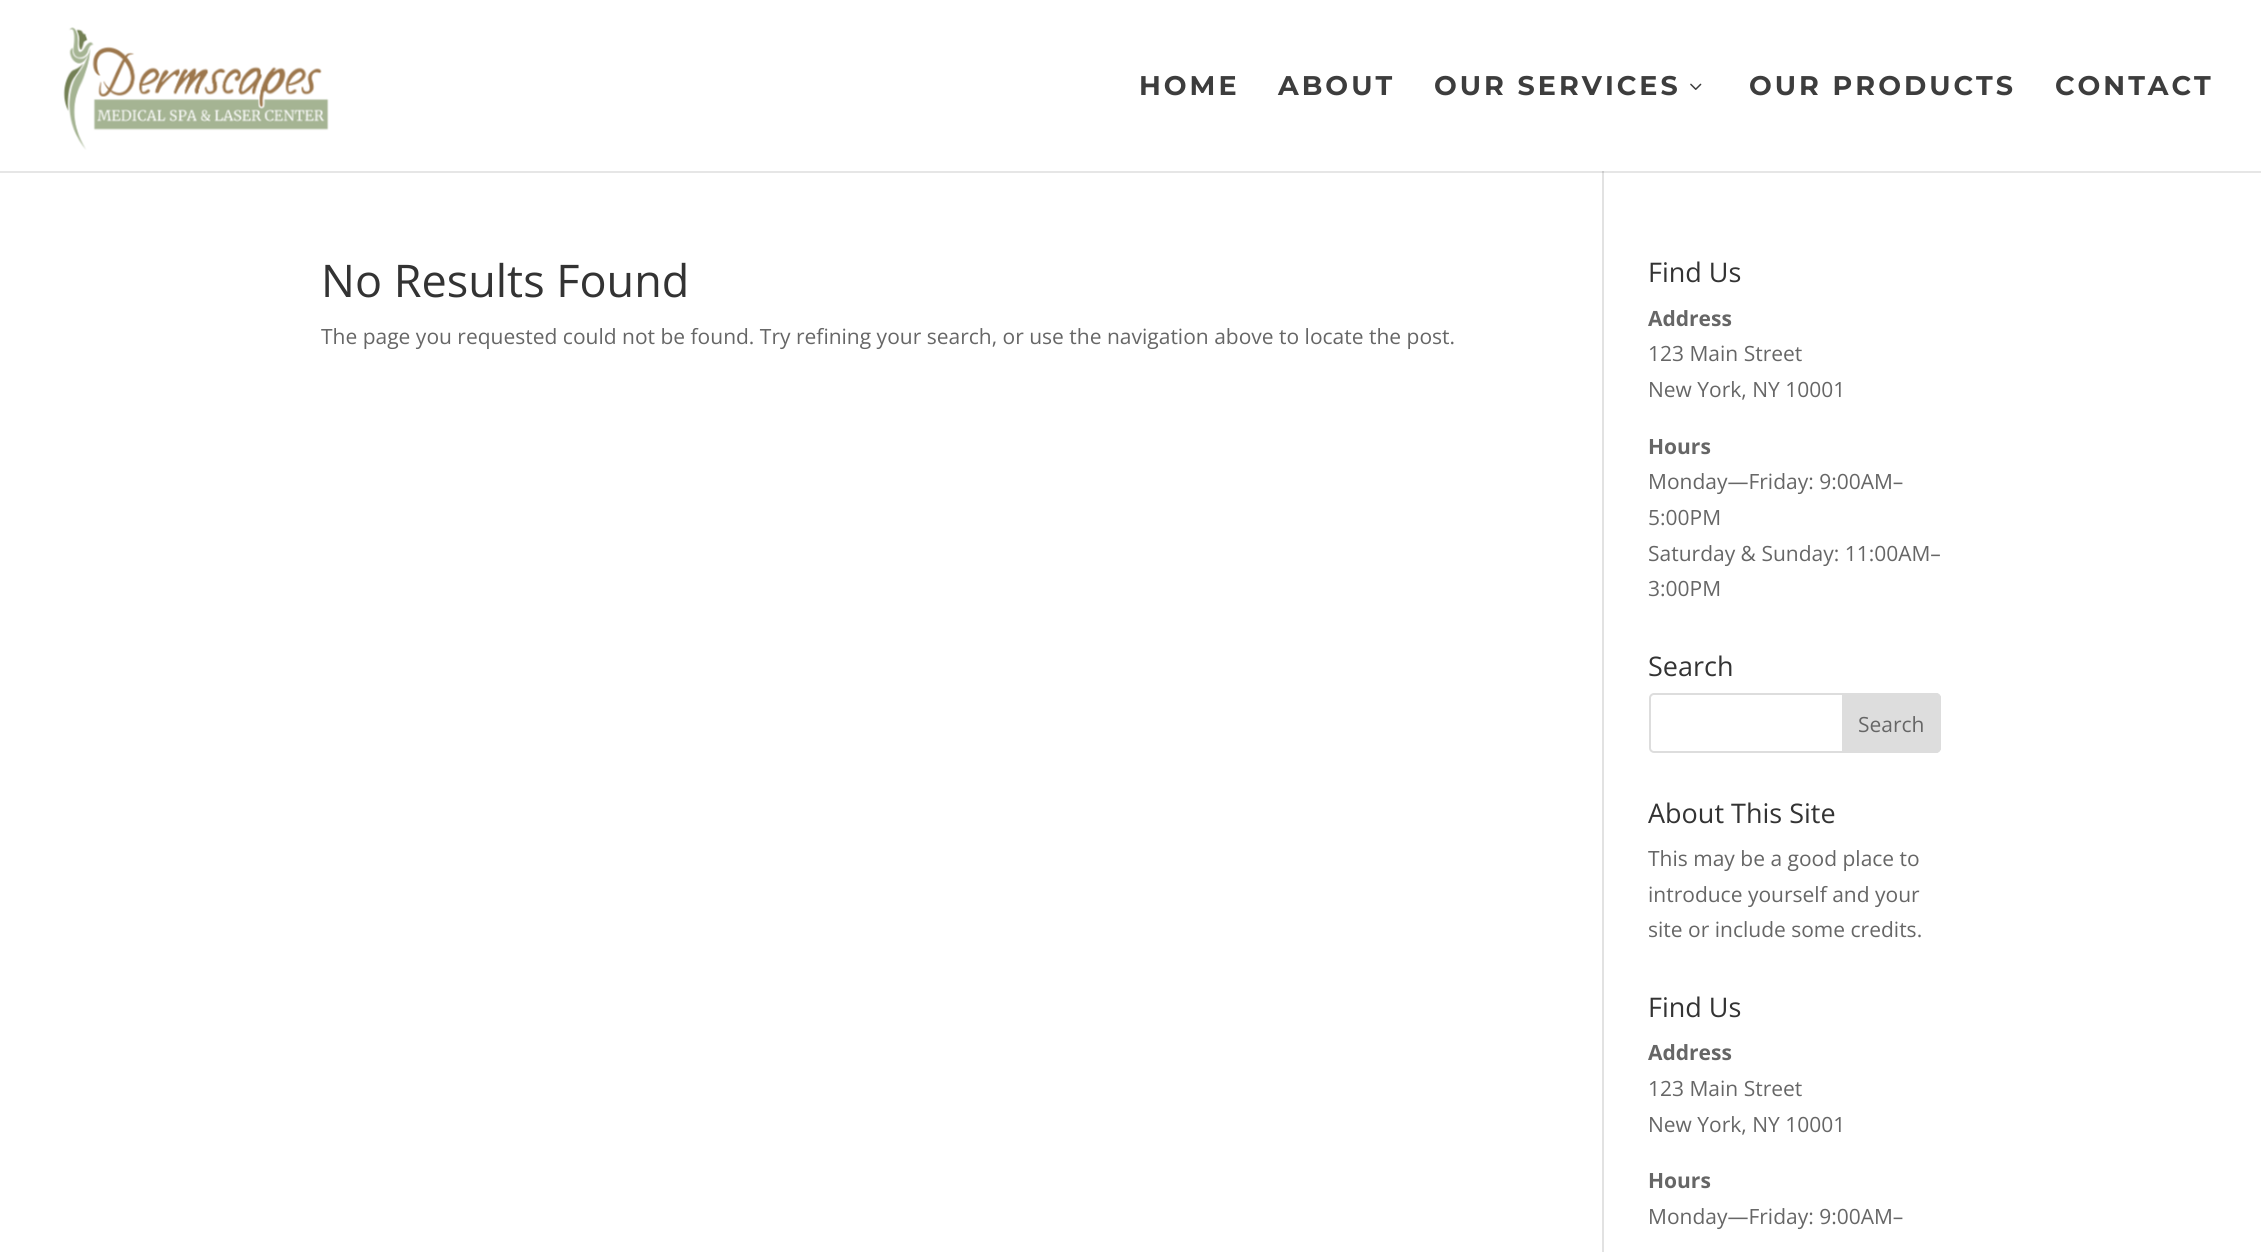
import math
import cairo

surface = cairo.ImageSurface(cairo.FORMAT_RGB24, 2261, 1252)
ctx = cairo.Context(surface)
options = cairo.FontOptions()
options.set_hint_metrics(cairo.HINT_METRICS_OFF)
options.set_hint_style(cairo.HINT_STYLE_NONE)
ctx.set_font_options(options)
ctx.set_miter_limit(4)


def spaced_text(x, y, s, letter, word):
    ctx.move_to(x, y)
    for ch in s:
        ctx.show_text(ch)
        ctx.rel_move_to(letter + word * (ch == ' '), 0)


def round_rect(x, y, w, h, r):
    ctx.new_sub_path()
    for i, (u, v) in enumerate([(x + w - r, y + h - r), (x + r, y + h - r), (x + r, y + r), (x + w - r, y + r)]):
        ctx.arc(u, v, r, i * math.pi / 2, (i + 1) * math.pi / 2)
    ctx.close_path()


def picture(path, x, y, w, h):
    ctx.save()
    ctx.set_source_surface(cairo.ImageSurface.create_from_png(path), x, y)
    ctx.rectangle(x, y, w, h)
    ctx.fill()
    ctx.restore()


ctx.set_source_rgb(1, 1, 1)
ctx.paint()
ctx.set_source_rgb(0.902, 0.902, 0.902)
ctx.rectangle(0, 171, 2261, 2)
ctx.fill()
picture("img1.png", 63, 27, 266, 123)
ctx.select_font_face("Montserrat Thin")
ctx.set_font_size(27)
ctx.set_source_rgb(0.239, 0.239, 0.239)
spaced_text(1139, 95, "HOME", 3, 0)
spaced_text(1278, 95, "ABOUT", 3, 0)
spaced_text(1434, 95, "OUR SERVICES", 3, 0)
picture("img2.png", 1690, 83, 12, 7)
spaced_text(1749, 95, "OUR PRODUCTS", 3, 0)
spaced_text(2055, 95, "CONTACT", 3, 0)
ctx.set_source_rgb(0.886, 0.886, 0.886)
ctx.rectangle(1602, 171, 2, 1081)
ctx.fill()
ctx.set_source_rgb(0.796, 0.796, 0.796)
ctx.rectangle(1602, 171, 2, 2)
ctx.fill()
ctx.select_font_face("Open Sans")
ctx.set_font_size(45)
ctx.set_source_rgb(0.2, 0.2, 0.2)
ctx.move_to(321, 297)
ctx.show_text("No Results Found")
ctx.set_font_size(21)
ctx.set_source_rgb(0.4, 0.4, 0.4)
ctx.move_to(321, 344)
ctx.show_text("The page you requested could not be found. Try refining your search, or use the navigation above to locate the post.")
ctx.set_font_size(27)
ctx.set_source_rgb(0.2, 0.2, 0.2)
ctx.move_to(1648, 282)
ctx.show_text("Find Us")
ctx.select_font_face("Open Sans", cairo.FONT_SLANT_NORMAL, cairo.FONT_WEIGHT_BOLD)
ctx.set_font_size(21)
ctx.set_source_rgb(0.4, 0.4, 0.4)
ctx.move_to(1648, 326)
ctx.show_text("Address")
ctx.select_font_face("Open Sans")
ctx.move_to(1648, 361)
ctx.show_text("123 Main Street")
ctx.move_to(1648, 397)
ctx.show_text("New York, NY 10001")
ctx.select_font_face("Open Sans", cairo.FONT_SLANT_NORMAL, cairo.FONT_WEIGHT_BOLD)
ctx.move_to(1648, 454)
ctx.show_text("Hours")
ctx.select_font_face("Open Sans")
ctx.move_to(1648, 489)
ctx.show_text("Monday—Friday: 9:00AM–")
ctx.move_to(1648, 525)
ctx.show_text("5:00PM")
ctx.move_to(1648, 561)
ctx.show_text("Saturday & Sunday: 11:00AM–")
ctx.move_to(1648, 596)
ctx.show_text("3:00PM")
ctx.set_font_size(27)
ctx.set_source_rgb(0.2, 0.2, 0.2)
ctx.move_to(1648, 676)
ctx.show_text("Search")
round_rect(1650, 694, 290, 58, 4)
ctx.set_source_rgb(0.867, 0.867, 0.867)
ctx.stroke()
ctx.new_path()
ctx.move_to(1843, 694)
ctx.line_to(1936, 694)
ctx.curve_to(1938, 694, 1940, 696, 1940, 698)
ctx.line_to(1940, 748)
ctx.curve_to(1940, 750, 1938, 752, 1936, 752)
ctx.line_to(1843, 752)
ctx.close_path()
ctx.fill_preserve()
ctx.stroke()
ctx.set_font_size(21)
ctx.set_source_rgb(0.4, 0.4, 0.4)
ctx.move_to(1858, 732)
ctx.show_text("Search")
ctx.set_font_size(27)
ctx.set_source_rgb(0.2, 0.2, 0.2)
ctx.move_to(1648, 823)
ctx.show_text("About This Site")
ctx.set_font_size(21)
ctx.set_source_rgb(0.4, 0.4, 0.4)
ctx.move_to(1648, 866)
ctx.show_text("This may be a good place to")
ctx.move_to(1648, 902)
ctx.show_text("introduce yourself and your")
ctx.move_to(1648, 937)
ctx.show_text("site or include some credits.")
ctx.set_font_size(27)
ctx.set_source_rgb(0.2, 0.2, 0.2)
ctx.move_to(1648, 1017)
ctx.show_text("Find Us")
ctx.select_font_face("Open Sans", cairo.FONT_SLANT_NORMAL, cairo.FONT_WEIGHT_BOLD)
ctx.set_font_size(21)
ctx.set_source_rgb(0.4, 0.4, 0.4)
ctx.move_to(1648, 1060)
ctx.show_text("Address")
ctx.select_font_face("Open Sans")
ctx.move_to(1648, 1096)
ctx.show_text("123 Main Street")
ctx.move_to(1648, 1132)
ctx.show_text("New York, NY 10001")
ctx.select_font_face("Open Sans", cairo.FONT_SLANT_NORMAL, cairo.FONT_WEIGHT_BOLD)
ctx.move_to(1648, 1188)
ctx.show_text("Hours")
ctx.select_font_face("Open Sans")
ctx.move_to(1648, 1224)
ctx.show_text("Monday—Friday: 9:00AM–")
surface.write_to_png("page.png")
